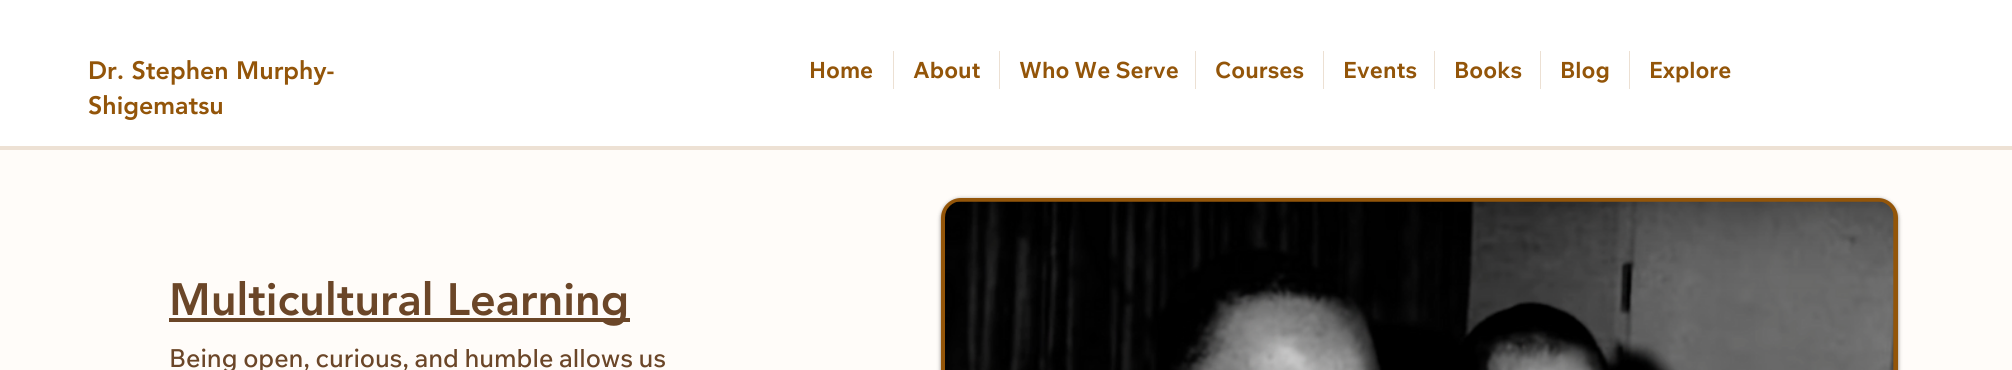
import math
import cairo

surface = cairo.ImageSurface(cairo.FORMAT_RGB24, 2012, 370)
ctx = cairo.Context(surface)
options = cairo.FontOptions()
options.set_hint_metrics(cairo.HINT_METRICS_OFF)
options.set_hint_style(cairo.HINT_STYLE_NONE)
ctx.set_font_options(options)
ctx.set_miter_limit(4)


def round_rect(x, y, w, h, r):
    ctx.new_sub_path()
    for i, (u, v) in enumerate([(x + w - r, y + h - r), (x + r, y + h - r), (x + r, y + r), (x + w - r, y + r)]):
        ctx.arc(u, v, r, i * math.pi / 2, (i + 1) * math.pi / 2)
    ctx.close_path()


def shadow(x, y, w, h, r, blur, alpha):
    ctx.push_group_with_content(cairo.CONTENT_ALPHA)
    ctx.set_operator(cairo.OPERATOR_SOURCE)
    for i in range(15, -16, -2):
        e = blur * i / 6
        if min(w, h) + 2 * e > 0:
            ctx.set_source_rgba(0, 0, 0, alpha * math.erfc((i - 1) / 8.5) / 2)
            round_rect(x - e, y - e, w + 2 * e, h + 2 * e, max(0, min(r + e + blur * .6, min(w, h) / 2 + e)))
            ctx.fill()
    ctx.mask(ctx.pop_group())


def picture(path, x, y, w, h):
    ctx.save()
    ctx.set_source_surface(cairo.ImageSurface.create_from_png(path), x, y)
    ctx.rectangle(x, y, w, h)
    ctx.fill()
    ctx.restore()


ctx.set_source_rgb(1, 0.988, 0.973)
ctx.paint()
ctx.set_source_rgb(0.929, 0.882, 0.831)
ctx.rectangle(0, 146, 2012, 4)
ctx.fill()
ctx.set_source_rgb(1, 1, 1)
ctx.rectangle(0, 0, 2012, 146)
ctx.fill()
ctx.select_font_face("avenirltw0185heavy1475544 Black")
ctx.set_font_size(25)
ctx.set_source_rgb(0.576, 0.333, 0.039)
ctx.move_to(88, 79)
ctx.show_text("Dr. Stephen Murphy-")
ctx.move_to(88, 114)
ctx.show_text("Shigematsu")
ctx.select_font_face("Wix Madefor Text", cairo.FONT_SLANT_NORMAL, cairo.FONT_WEIGHT_BOLD)
ctx.set_font_size(22.5)
ctx.move_to(809, 78)
ctx.show_text("Home")
ctx.set_source_rgb(0.925, 0.878, 0.827)
ctx.rectangle(893, 51, 1, 38)
ctx.fill()
ctx.set_source_rgb(0.576, 0.333, 0.039)
ctx.move_to(913, 78)
ctx.show_text("About")
ctx.set_source_rgb(0.925, 0.878, 0.827)
ctx.rectangle(999, 51, 1, 38)
ctx.fill()
ctx.set_source_rgb(0.576, 0.333, 0.039)
ctx.move_to(1019, 78)
ctx.show_text("Who We Serve")
ctx.set_source_rgb(0.925, 0.878, 0.827)
ctx.rectangle(1195, 51, 1, 38)
ctx.fill()
ctx.set_source_rgb(0.576, 0.333, 0.039)
ctx.move_to(1215, 78)
ctx.show_text("Courses")
ctx.set_source_rgb(0.925, 0.878, 0.827)
ctx.rectangle(1323, 51, 1, 38)
ctx.fill()
ctx.set_source_rgb(0.576, 0.333, 0.039)
ctx.move_to(1343, 78)
ctx.show_text("Events")
ctx.set_source_rgb(0.925, 0.878, 0.827)
ctx.rectangle(1434, 51, 1, 38)
ctx.fill()
ctx.set_source_rgb(0.576, 0.333, 0.039)
ctx.move_to(1454, 78)
ctx.show_text("Books")
ctx.set_source_rgb(0.925, 0.878, 0.827)
ctx.rectangle(1540, 51, 1, 38)
ctx.fill()
ctx.set_source_rgb(0.576, 0.333, 0.039)
ctx.move_to(1560, 78)
ctx.show_text("Blog")
ctx.set_source_rgb(0.925, 0.878, 0.827)
ctx.rectangle(1629, 51, 1, 38)
ctx.fill()
ctx.set_source_rgb(0.576, 0.333, 0.039)
ctx.move_to(1649, 78)
ctx.show_text("Explore")
ctx.set_source_rgb(0.42, 0.275, 0.157)
ctx.rectangle(169, 318, 461, 4)
ctx.fill()
ctx.select_font_face("avenirltw0185heavy1475544 Black")
ctx.set_font_size(45)
ctx.move_to(169, 315)
ctx.show_text("Multicultural Learning")
ctx.select_font_face("Wix Madefor Text Medium")
ctx.set_font_size(25)
ctx.move_to(169, 367)
ctx.show_text("Being open, curious, and humble allows us")
ctx.set_source_rgb(0, 0, 0)
shadow(941, 199, 957, 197, 20, 2, 0.5)
ctx.set_source_rgb(0.576, 0.333, 0.039)
round_rect(943, 200, 953, 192, 18)
ctx.fill_preserve()
ctx.set_line_width(4)
ctx.stroke()
picture("img1.png", 945, 201, 949, 169)
surface.write_to_png("page.png")
